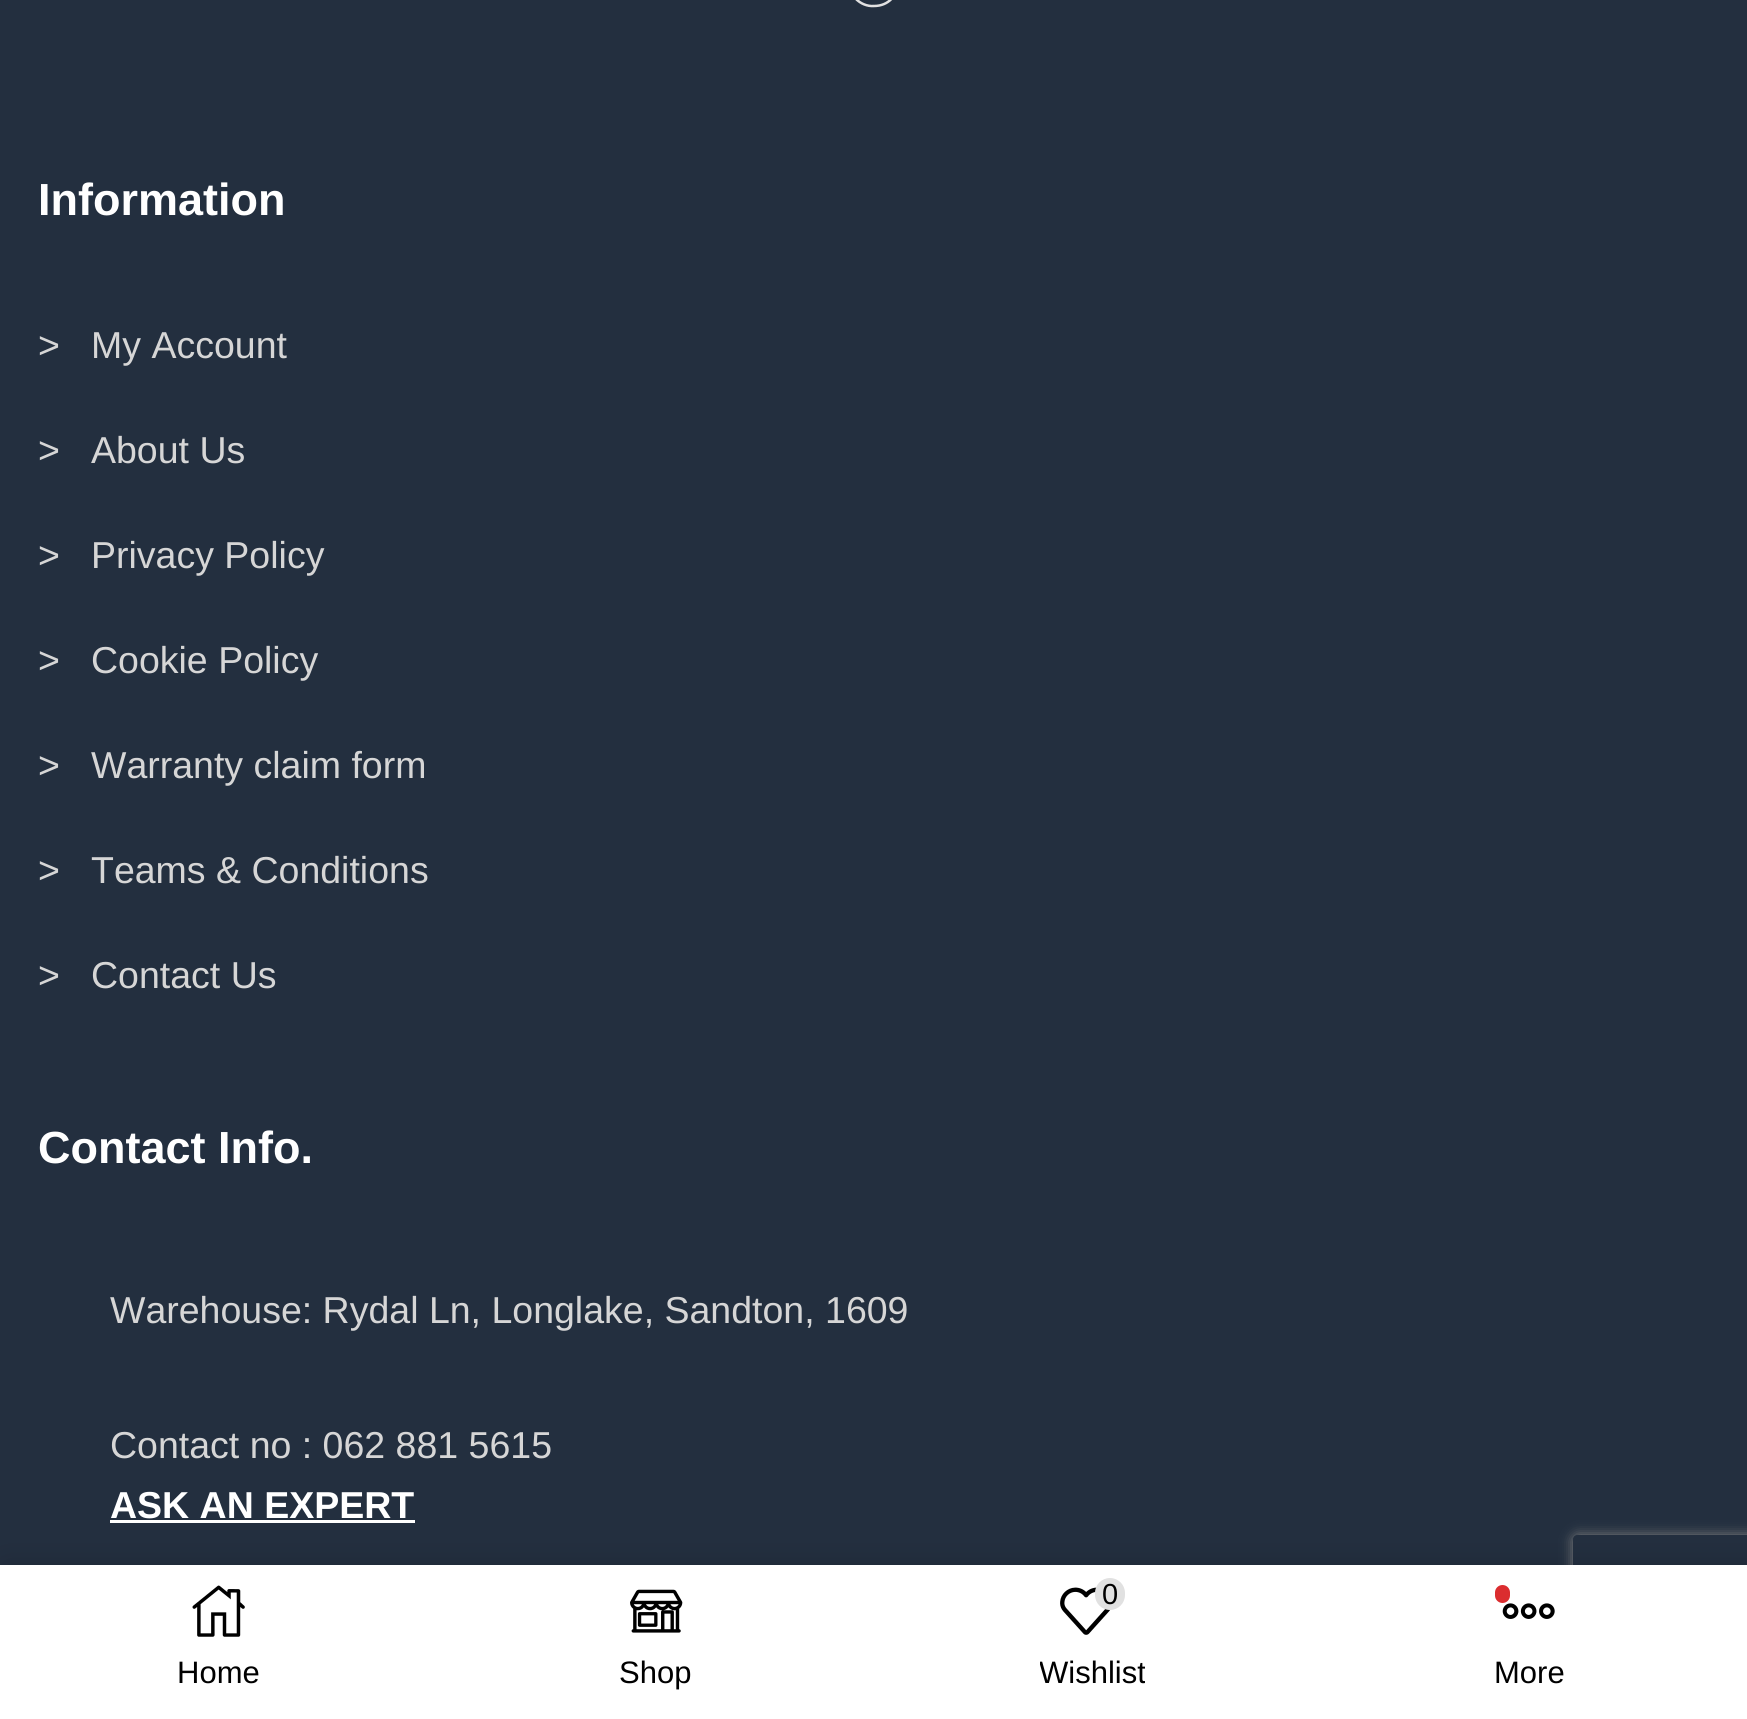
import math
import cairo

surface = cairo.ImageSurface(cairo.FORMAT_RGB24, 1747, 1719)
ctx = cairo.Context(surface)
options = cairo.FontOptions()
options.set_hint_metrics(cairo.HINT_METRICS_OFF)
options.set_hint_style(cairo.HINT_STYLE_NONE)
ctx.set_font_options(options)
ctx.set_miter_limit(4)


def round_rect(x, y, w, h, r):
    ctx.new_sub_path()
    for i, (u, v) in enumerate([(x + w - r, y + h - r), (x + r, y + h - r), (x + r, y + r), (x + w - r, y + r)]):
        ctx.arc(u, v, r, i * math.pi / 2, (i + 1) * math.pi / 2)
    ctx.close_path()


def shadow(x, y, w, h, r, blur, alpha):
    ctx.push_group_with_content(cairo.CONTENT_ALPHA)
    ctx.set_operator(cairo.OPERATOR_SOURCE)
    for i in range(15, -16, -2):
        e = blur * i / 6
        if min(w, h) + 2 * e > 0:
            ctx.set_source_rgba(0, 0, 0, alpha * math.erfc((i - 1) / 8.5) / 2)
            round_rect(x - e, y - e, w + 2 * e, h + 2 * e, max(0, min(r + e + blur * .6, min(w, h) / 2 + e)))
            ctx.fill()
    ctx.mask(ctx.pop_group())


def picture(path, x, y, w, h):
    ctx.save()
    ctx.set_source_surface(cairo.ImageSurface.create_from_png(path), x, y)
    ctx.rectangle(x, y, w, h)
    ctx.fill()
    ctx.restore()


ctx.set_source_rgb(0.137, 0.184, 0.247)
ctx.paint()
ctx.new_path()
ctx.move_to(856, -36.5)
ctx.curve_to(862, -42.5, 870.5, -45, 878.5, -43.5)
ctx.curve_to(908, -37.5, 903.5, 6, 874, 6)
ctx.curve_to(867, 6.5, 860.5, 3.5, 856, -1)
ctx.set_source_rgb(0.882, 0.882, 0.882)
ctx.set_line_width(2.5)
ctx.stroke()
ctx.select_font_face("Liberation Sans", cairo.FONT_SLANT_NORMAL, cairo.FONT_WEIGHT_BOLD)
ctx.set_font_size(45)
ctx.set_source_rgb(1, 1, 1)
ctx.move_to(38, 215)
ctx.show_text("Information")
ctx.select_font_face("Liberation Sans")
ctx.set_font_size(37.5)
ctx.set_source_rgb(0.839, 0.839, 0.839)
ctx.move_to(38, 358)
ctx.show_text(">")
ctx.move_to(91, 358)
ctx.show_text("My Account")
ctx.move_to(38, 463)
ctx.show_text(">")
ctx.move_to(91, 463)
ctx.show_text("About Us")
ctx.move_to(38, 568)
ctx.show_text(">")
ctx.move_to(91, 568)
ctx.show_text("Privacy Policy")
ctx.move_to(38, 673)
ctx.show_text(">")
ctx.move_to(91, 673)
ctx.show_text("Cookie Policy")
ctx.move_to(38, 778)
ctx.show_text(">")
ctx.move_to(91, 778)
ctx.show_text("Warranty claim form")
ctx.move_to(38, 883)
ctx.show_text(">")
ctx.move_to(91, 883)
ctx.show_text("Teams & Conditions")
ctx.move_to(38, 988)
ctx.show_text(">")
ctx.move_to(91, 988)
ctx.show_text("Contact Us")
ctx.select_font_face("Liberation Sans", cairo.FONT_SLANT_NORMAL, cairo.FONT_WEIGHT_BOLD)
ctx.set_font_size(45)
ctx.set_source_rgb(1, 1, 1)
ctx.move_to(38, 1163)
ctx.show_text("Contact Info.")
ctx.select_font_face("Liberation Sans")
ctx.set_font_size(37.5)
ctx.set_source_rgb(0.839, 0.839, 0.839)
ctx.move_to(110, 1323)
ctx.show_text("Warehouse: Rydal Ln, Longlake, Sandton, 1609")
ctx.move_to(110, 1458)
ctx.show_text("Contact no : 062 881 5615")
ctx.select_font_face("Liberation Sans", cairo.FONT_SLANT_NORMAL, cairo.FONT_WEIGHT_BOLD)
ctx.set_source_rgb(1, 1, 1)
ctx.move_to(110, 1518)
ctx.show_text("ASK AN EXPERT")
ctx.rectangle(110, 1520, 305, 3)
ctx.fill()
ctx.set_source_rgb(0, 0, 0)
shadow(5, 1565, 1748, 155, 0, 15, 0.15)
ctx.save()
ctx.set_fill_rule(cairo.FILL_RULE_EVEN_ODD)
ctx.new_path()
ctx.move_to(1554, 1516)
ctx.line_to(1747, 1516)
ctx.line_to(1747, 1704)
ctx.line_to(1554, 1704)
ctx.close_path()
ctx.move_to(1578, 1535)
ctx.line_to(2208, 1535)
ctx.curve_to(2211, 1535, 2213, 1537, 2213, 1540)
ctx.line_to(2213, 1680)
ctx.curve_to(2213, 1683, 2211, 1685, 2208, 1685)
ctx.line_to(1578, 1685)
ctx.curve_to(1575, 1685, 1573, 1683, 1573, 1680)
ctx.line_to(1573, 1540)
ctx.curve_to(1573, 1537, 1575, 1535, 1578, 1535)
ctx.close_path()
ctx.clip()
ctx.set_source_rgb(0.502, 0.502, 0.502)
shadow(1573, 1535, 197, 150, 5, 6, 1)
ctx.restore()
ctx.set_source_rgb(1, 1, 1)
ctx.rectangle(0, 1565, 1747, 154)
ctx.fill()
picture("img1.png", 192, 1585, 53, 52)
ctx.select_font_face("Liberation Sans")
ctx.set_font_size(31)
ctx.set_source_rgb(0, 0, 0)
ctx.move_to(177, 1683)
ctx.show_text("Home")
picture("img2.png", 630, 1589, 53, 44)
ctx.move_to(619, 1683)
ctx.show_text("Shop")
picture("img3.png", 1060, 1587, 51, 48)
ctx.set_source_rgb(0.882, 0.882, 0.882)
round_rect(1095, 1578, 30, 32, 15)
ctx.fill()
ctx.set_font_size(29)
ctx.set_source_rgb(0, 0, 0)
ctx.move_to(1102, 1604)
ctx.show_text("0")
ctx.save()
ctx.rectangle(1040, 1638, 105, 62)
ctx.clip()
ctx.set_font_size(31)
ctx.move_to(1039, 1683)
ctx.show_text("Wishlist")
ctx.restore()
ctx.set_source_rgb(0.859, 0.176, 0.184)
round_rect(1495, 1585, 15, 18, 7.5)
ctx.fill()
picture("img4.png", 1502, 1603, 53, 16)
ctx.set_font_size(31)
ctx.set_source_rgb(0, 0, 0)
ctx.move_to(1494, 1683)
ctx.show_text("More")
surface.write_to_png("page.png")
